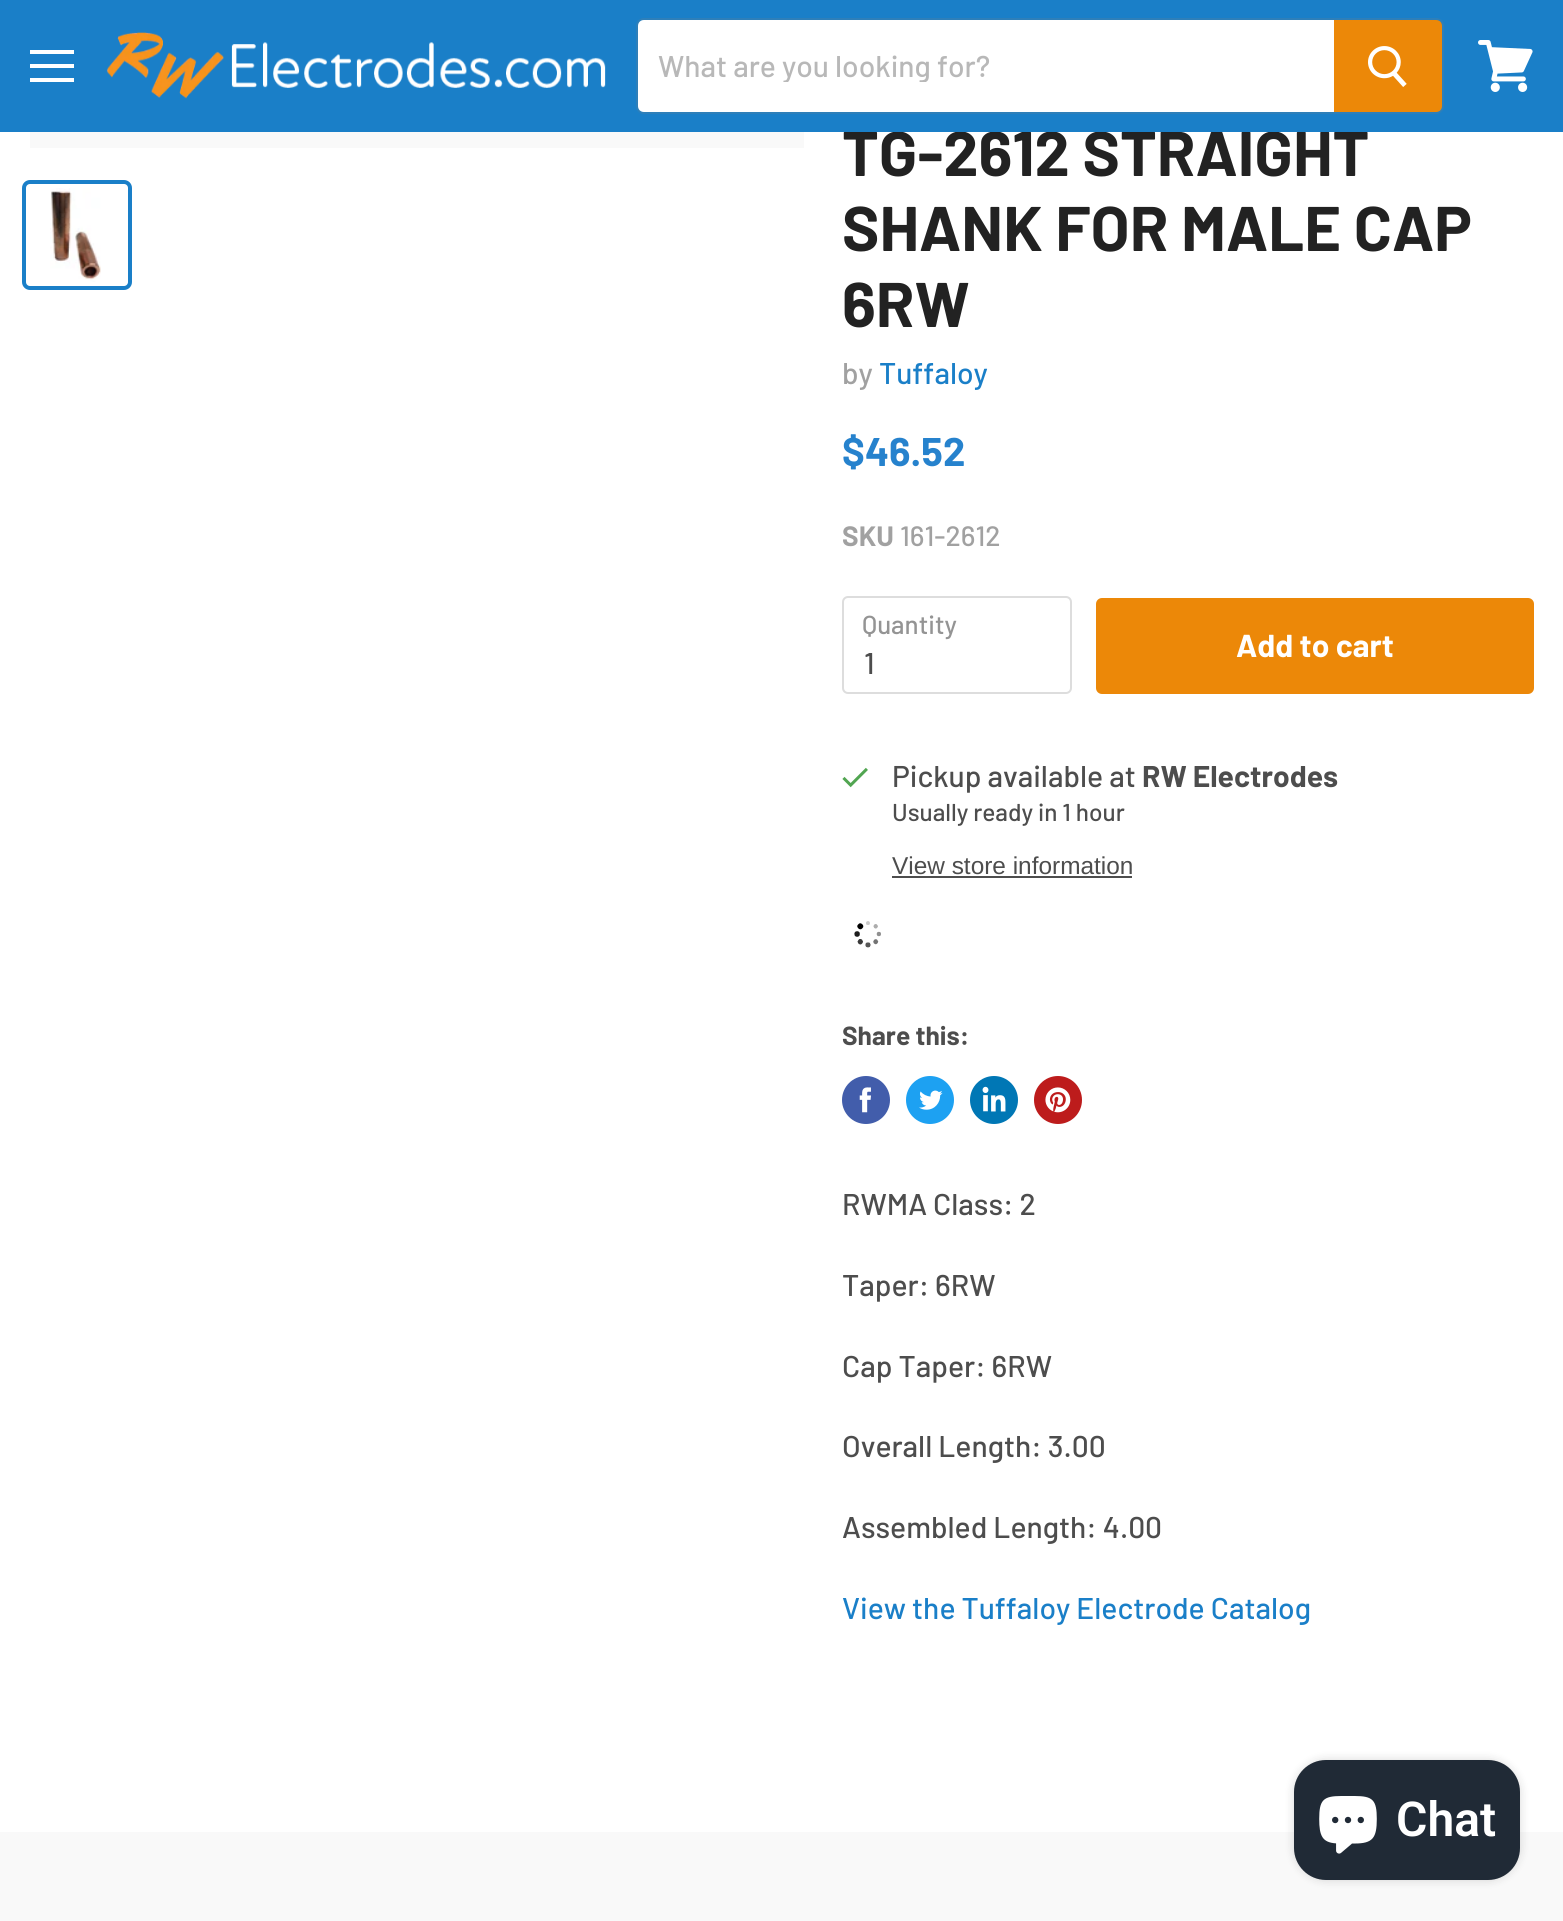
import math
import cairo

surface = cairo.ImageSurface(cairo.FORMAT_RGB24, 1563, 1921)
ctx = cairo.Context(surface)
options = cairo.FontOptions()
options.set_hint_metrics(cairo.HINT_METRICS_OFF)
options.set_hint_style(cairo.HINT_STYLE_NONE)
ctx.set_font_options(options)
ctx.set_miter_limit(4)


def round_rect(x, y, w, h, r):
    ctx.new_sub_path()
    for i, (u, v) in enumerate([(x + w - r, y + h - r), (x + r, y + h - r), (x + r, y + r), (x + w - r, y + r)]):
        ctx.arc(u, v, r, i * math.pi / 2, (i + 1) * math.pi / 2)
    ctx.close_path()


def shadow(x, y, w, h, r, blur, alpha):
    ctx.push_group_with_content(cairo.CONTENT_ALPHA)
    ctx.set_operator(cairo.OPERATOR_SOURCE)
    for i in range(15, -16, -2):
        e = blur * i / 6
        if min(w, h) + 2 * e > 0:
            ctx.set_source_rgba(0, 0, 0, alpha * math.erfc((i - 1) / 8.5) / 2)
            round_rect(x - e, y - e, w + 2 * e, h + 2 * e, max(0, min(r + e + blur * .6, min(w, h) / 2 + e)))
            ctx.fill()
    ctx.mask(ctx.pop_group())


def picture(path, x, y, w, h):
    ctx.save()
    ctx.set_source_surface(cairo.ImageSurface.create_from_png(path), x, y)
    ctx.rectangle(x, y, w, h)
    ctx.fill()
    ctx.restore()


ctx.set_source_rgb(1, 1, 1)
ctx.paint()
ctx.select_font_face("Barlow", cairo.FONT_SLANT_NORMAL, cairo.FONT_WEIGHT_BOLD)
ctx.set_font_size(63)
ctx.set_source_rgb(0.133, 0.133, 0.133)
ctx.move_to(842, 176)
ctx.show_text("TG-2612 STRAIGHT")
ctx.set_source_rgb(0.102, 0.498, 0.784)
ctx.rectangle(0, 0, 1563, 132)
ctx.fill()
ctx.set_source_rgb(1, 1, 1)
ctx.rectangle(30, 50, 44, 4)
ctx.fill()
ctx.rectangle(30, 64, 44, 4)
ctx.fill()
ctx.rectangle(30, 78, 44, 4)
ctx.fill()
picture("img1.png", 106, 32, 500, 67)
round_rect(637, 19, 806, 94, 7)
ctx.set_source_rgba(0.502, 0.502, 0.502, 0.2)
ctx.stroke()
ctx.set_source_rgb(1, 1, 1)
ctx.new_path()
ctx.move_to(644, 20)
ctx.line_to(1334, 20)
ctx.line_to(1334, 112)
ctx.line_to(644, 112)
ctx.curve_to(640.5, 112, 638, 109.5, 638, 106)
ctx.line_to(638, 26)
ctx.curve_to(638, 22.5, 640.5, 20, 644, 20)
ctx.close_path()
ctx.fill()
ctx.save()
ctx.rectangle(658, 46, 656, 36)
ctx.clip()
ctx.select_font_face("Barlow Medium")
ctx.set_font_size(30)
ctx.set_source_rgb(0.722, 0.722, 0.722)
ctx.move_to(658, 77)
ctx.show_text("What are you looking for?")
ctx.restore()
ctx.set_source_rgb(0.922, 0.533, 0.035)
ctx.new_path()
ctx.move_to(1335, 21)
ctx.line_to(1436, 21)
ctx.curve_to(1439, 21, 1441, 23, 1441, 26)
ctx.line_to(1441, 106)
ctx.curve_to(1441, 109, 1439, 111, 1436, 111)
ctx.line_to(1335, 111)
ctx.close_path()
ctx.fill_preserve()
ctx.stroke()
picture("img2.png", 1368, 46, 39, 41)
picture("img3.png", 1478, 40, 55, 52)
ctx.set_source_rgb(0.973, 0.973, 0.973)
ctx.rectangle(30, 132, 774, 16)
ctx.fill()
round_rect(24, 182, 106, 106, 6)
ctx.set_source_rgb(0.102, 0.498, 0.784)
ctx.set_line_width(4)
ctx.stroke()
picture("img4.png", 50, 188, 51, 94)
ctx.set_source_rgb(0.133, 0.133, 0.133)
ctx.move_to(842, 251)
ctx.show_text("SHANK FOR MALE CAP")
ctx.move_to(842, 327)
ctx.show_text("6RW")
ctx.select_font_face("Barlow Medium")
ctx.set_font_size(30)
ctx.set_source_rgb(0.631, 0.631, 0.631)
ctx.move_to(842, 384)
ctx.show_text("by")
ctx.set_source_rgb(0.102, 0.498, 0.784)
ctx.move_to(879, 384)
ctx.show_text("Tuffaloy")
ctx.select_font_face("Barlow", cairo.FONT_SLANT_NORMAL, cairo.FONT_WEIGHT_BOLD)
ctx.set_font_size(40)
ctx.set_source_rgb(0.149, 0.51, 0.804)
ctx.move_to(842, 466)
ctx.show_text("$46.52")
ctx.set_font_size(28)
ctx.set_source_rgb(0.631, 0.631, 0.631)
ctx.move_to(842, 546)
ctx.show_text("SKU")
ctx.select_font_face("Barlow Medium")
ctx.move_to(900, 546)
ctx.show_text("161-2612")
round_rect(843, 597, 228, 96, 5)
ctx.set_source_rgb(0.867, 0.867, 0.867)
ctx.set_line_width(2)
ctx.stroke()
ctx.set_font_size(26)
ctx.set_source_rgb(0.58, 0.58, 0.58)
ctx.move_to(862, 634)
ctx.show_text("Quantity")
ctx.set_font_size(30)
ctx.set_source_rgb(0.302, 0.302, 0.302)
ctx.move_to(864, 674)
ctx.show_text("1")
ctx.set_source_rgb(0.922, 0.533, 0.035)
round_rect(1097, 599, 436, 94, 5)
ctx.fill_preserve()
ctx.stroke()
ctx.select_font_face("Barlow", cairo.FONT_SLANT_NORMAL, cairo.FONT_WEIGHT_BOLD)
ctx.set_font_size(31.75)
ctx.set_source_rgb(1, 1, 1)
ctx.move_to(1236, 657)
ctx.show_text("Add to cart")
picture("img5.png", 842, 767, 26, 21)
ctx.select_font_face("Barlow Medium")
ctx.set_font_size(30)
ctx.set_source_rgb(0.302, 0.302, 0.302)
ctx.move_to(892, 787)
ctx.show_text("Pickup available at")
ctx.select_font_face("Barlow", cairo.FONT_SLANT_NORMAL, cairo.FONT_WEIGHT_BOLD)
ctx.move_to(1142, 787)
ctx.show_text("RW Electrodes")
ctx.select_font_face("Barlow Medium")
ctx.set_font_size(24.4)
ctx.move_to(892, 821)
ctx.show_text("Usually ready in 1 hour")
ctx.select_font_face("Liberation Sans")
ctx.move_to(892, 874)
ctx.show_text("View store information")
ctx.rectangle(892, 876, 240, 2)
ctx.fill()
picture("img6.png", 854, 921, 27, 27)
ctx.select_font_face("Barlow", cairo.FONT_SLANT_NORMAL, cairo.FONT_WEIGHT_BOLD)
ctx.set_font_size(26.25)
ctx.move_to(842, 1045)
ctx.show_text("Share this:")
ctx.set_source_rgb(0.259, 0.365, 0.671)
ctx.new_path()
ctx.arc(866, 1100, 24, 0, 2 * math.pi)
ctx.fill()
picture("img7.png", 859, 1087, 12, 26)
ctx.set_source_rgb(0.114, 0.631, 0.949)
ctx.arc(930, 1100, 24, 0, 2 * math.pi)
ctx.fill()
picture("img8.png", 919, 1090, 24, 20)
ctx.set_source_rgb(0, 0.467, 0.71)
ctx.arc(994, 1100, 24, 0, 2 * math.pi)
ctx.fill()
picture("img9.png", 982, 1086, 24, 26)
ctx.set_source_rgb(0.741, 0.11, 0.11)
ctx.arc(1058, 1100, 24, 0, 2 * math.pi)
ctx.fill()
picture("img10.png", 1045, 1087, 26, 26)
ctx.select_font_face("Barlow Medium")
ctx.set_font_size(30)
ctx.set_source_rgb(0.302, 0.302, 0.302)
ctx.move_to(842, 1215)
ctx.show_text("RWMA Class: 2")
ctx.move_to(842, 1296)
ctx.show_text("Taper: 6RW")
ctx.move_to(842, 1377)
ctx.show_text("Cap Taper: 6RW")
ctx.move_to(842, 1457)
ctx.show_text("Overall Length: 3.00")
ctx.move_to(842, 1538)
ctx.show_text("Assembled Length: 4.00")
ctx.set_source_rgb(0.102, 0.498, 0.784)
ctx.move_to(842, 1619)
ctx.show_text("View the Tuffaloy Electrode Catalog")
ctx.set_source_rgb(0.973, 0.973, 0.973)
ctx.rectangle(0, 1832, 1563, 89)
ctx.fill()
ctx.set_source_rgb(0, 0, 0)
shadow(1294, 1760, 226, 120, 32, 5, 0.15)
ctx.set_source_rgb(0.125, 0.165, 0.212)
round_rect(1294, 1760, 226, 120, 32)
ctx.fill()
picture("img11.png", 1319, 1796, 58, 58)
ctx.select_font_face("Roboto SemiBold")
ctx.set_font_size(48)
ctx.set_source_rgb(1, 1, 1)
ctx.move_to(1396, 1836)
ctx.show_text("Chat")
surface.write_to_png("page.png")
